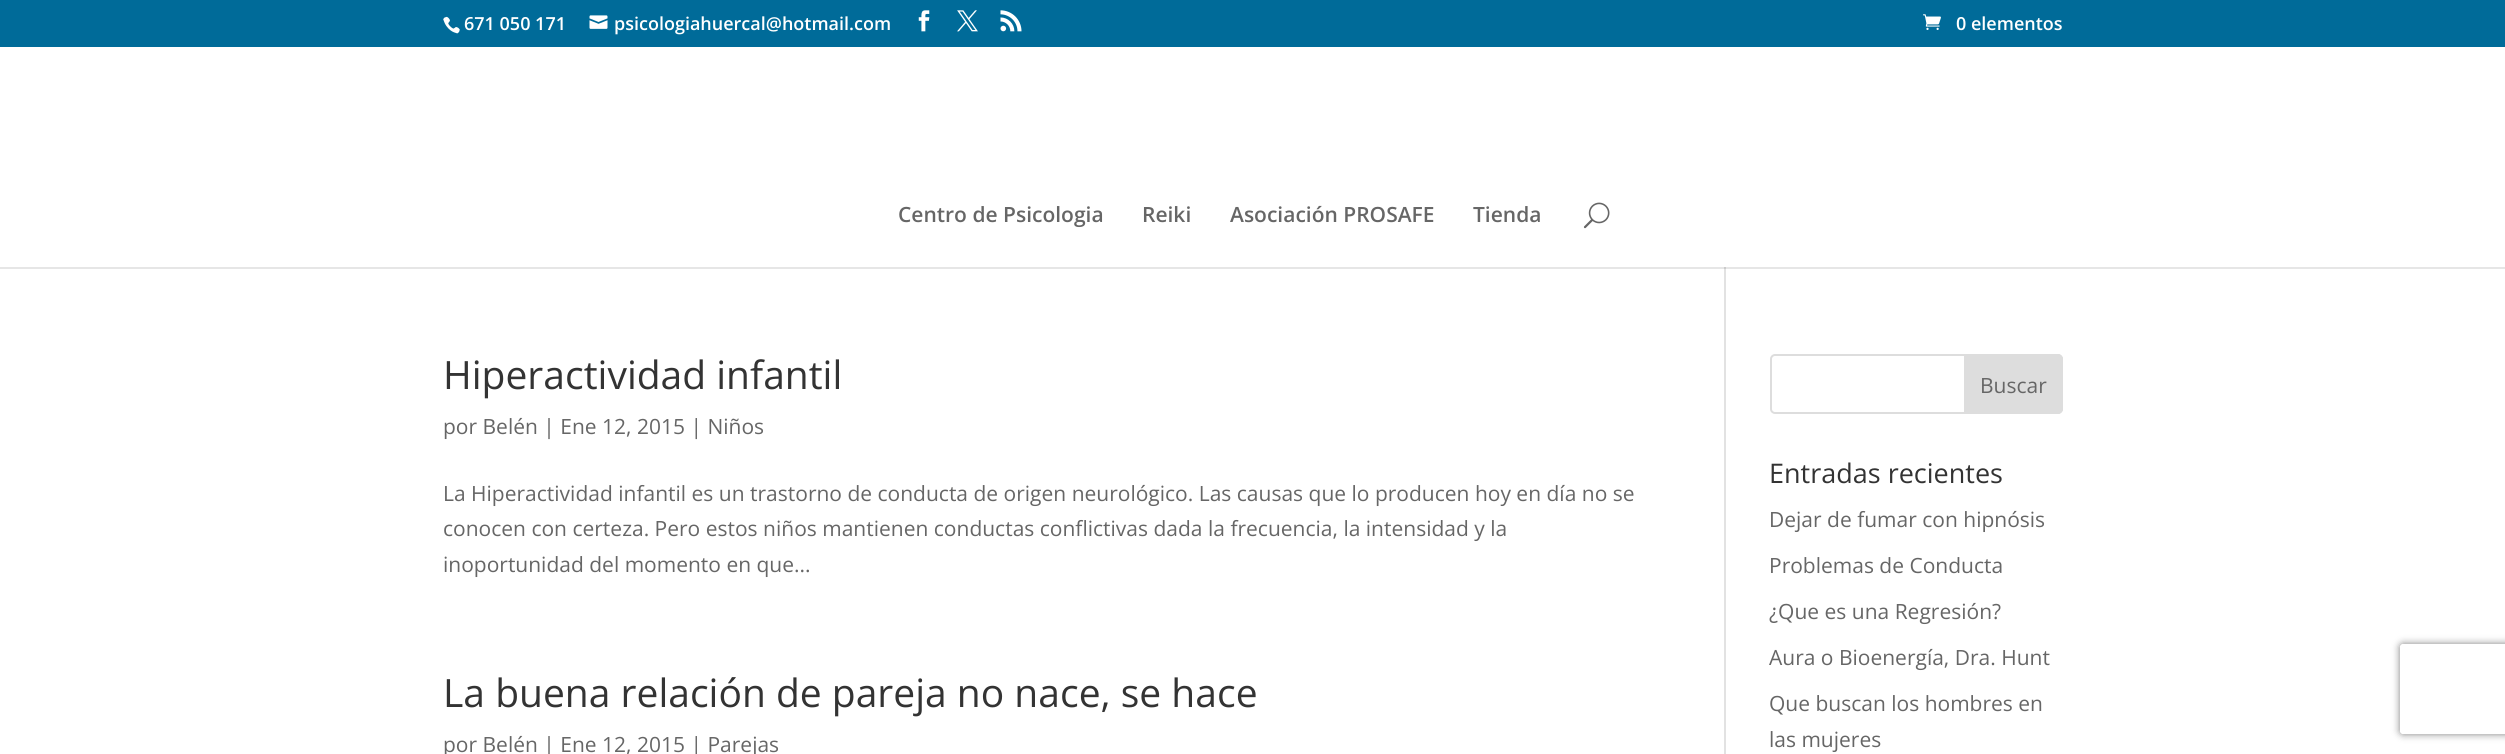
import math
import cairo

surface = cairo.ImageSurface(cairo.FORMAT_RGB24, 2505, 754)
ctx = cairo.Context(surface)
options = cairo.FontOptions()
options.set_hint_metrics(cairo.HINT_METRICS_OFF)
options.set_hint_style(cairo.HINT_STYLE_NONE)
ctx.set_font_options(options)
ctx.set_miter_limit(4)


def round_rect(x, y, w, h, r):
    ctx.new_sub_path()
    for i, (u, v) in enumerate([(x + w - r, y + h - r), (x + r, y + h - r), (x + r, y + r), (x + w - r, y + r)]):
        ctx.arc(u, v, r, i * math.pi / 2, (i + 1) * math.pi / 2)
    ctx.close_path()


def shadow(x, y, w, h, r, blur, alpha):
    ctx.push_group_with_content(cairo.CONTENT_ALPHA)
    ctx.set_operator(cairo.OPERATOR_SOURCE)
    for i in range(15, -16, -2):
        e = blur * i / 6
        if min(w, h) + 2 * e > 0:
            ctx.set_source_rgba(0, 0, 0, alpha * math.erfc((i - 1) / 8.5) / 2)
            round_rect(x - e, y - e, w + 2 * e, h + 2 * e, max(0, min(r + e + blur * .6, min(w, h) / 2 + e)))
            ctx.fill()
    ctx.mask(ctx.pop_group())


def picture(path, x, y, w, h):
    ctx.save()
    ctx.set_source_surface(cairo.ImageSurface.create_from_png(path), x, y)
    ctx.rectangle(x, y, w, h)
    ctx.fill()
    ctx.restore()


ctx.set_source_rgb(1, 1, 1)
ctx.paint()
ctx.set_source_rgb(0.902, 0.902, 0.902)
ctx.rectangle(0, 267, 2505, 2)
ctx.fill()
ctx.set_source_rgb(0, 0.42, 0.6)
ctx.rectangle(0, 0, 2505, 47)
ctx.fill()
picture("img1.png", 443, 16, 17, 18)
ctx.select_font_face("Open Sans SemiBold")
ctx.set_font_size(18)
ctx.set_source_rgb(1, 1, 1)
ctx.move_to(464, 30)
ctx.show_text("671 050 171")
picture("img2.png", 589, 15, 19, 14)
ctx.move_to(614, 30)
ctx.show_text("psicologiahuercal@hotmail.com")
picture("img3.png", 918, 10, 12, 22)
picture("img4.png", 957, 10, 21, 22)
picture("img5.png", 1000, 10, 22, 22)
picture("img6.png", 1923, 14, 18, 16)
ctx.move_to(1956, 30)
ctx.show_text("0 elementos")
ctx.set_font_size(21)
ctx.set_source_rgb(0.4, 0.4, 0.4)
ctx.move_to(898, 222)
ctx.show_text("Centro de Psicologia")
ctx.move_to(1142, 222)
ctx.show_text("Reiki")
ctx.move_to(1230, 222)
ctx.show_text("Asociación PROSAFE")
ctx.move_to(1473, 222)
ctx.show_text("Tienda")
picture("img7.png", 1583, 202, 27, 27)
ctx.set_source_rgb(0.886, 0.886, 0.886)
ctx.rectangle(1724, 267, 2, 487)
ctx.fill()
ctx.set_source_rgb(0.796, 0.796, 0.796)
ctx.rectangle(1724, 267, 2, 2)
ctx.fill()
ctx.select_font_face("Open Sans")
ctx.set_font_size(39)
ctx.set_source_rgb(0.2, 0.2, 0.2)
ctx.move_to(443, 389)
ctx.show_text("Hiperactividad infantil")
ctx.set_font_size(21)
ctx.set_source_rgb(0.4, 0.4, 0.4)
ctx.move_to(443, 434)
ctx.show_text("por Belén | Ene 12, 2015 | Niños")
ctx.move_to(443, 501)
ctx.show_text("La Hiperactividad infantil es un trastorno de conducta de origen neurológico. Las causas que lo producen hoy en día no se")
ctx.move_to(443, 536)
ctx.show_text("conocen con certeza. Pero estos niños mantienen conductas conflictivas dada la frecuencia, la intensidad y la")
ctx.move_to(443, 572)
ctx.show_text("inoportunidad del momento en que...")
ctx.set_font_size(39)
ctx.set_source_rgb(0.2, 0.2, 0.2)
ctx.move_to(443, 707)
ctx.show_text("La buena relación de pareja no nace, se hace")
ctx.set_font_size(21)
ctx.set_source_rgb(0.4, 0.4, 0.4)
ctx.move_to(443, 752)
ctx.show_text("por Belén | Ene 12, 2015 | Parejas")
round_rect(1771, 355, 291, 58, 4)
ctx.set_source_rgb(0.867, 0.867, 0.867)
ctx.stroke()
ctx.new_path()
ctx.move_to(1965, 355)
ctx.line_to(2058, 355)
ctx.curve_to(2060, 355, 2062, 357, 2062, 359)
ctx.line_to(2062, 409)
ctx.curve_to(2062, 411, 2060, 413, 2058, 413)
ctx.line_to(1965, 413)
ctx.close_path()
ctx.fill_preserve()
ctx.stroke()
ctx.set_source_rgb(0.4, 0.4, 0.4)
ctx.move_to(1980, 393)
ctx.show_text("Buscar")
ctx.set_font_size(27)
ctx.set_source_rgb(0.2, 0.2, 0.2)
ctx.move_to(1769, 483)
ctx.show_text("Entradas recientes")
ctx.set_font_size(21)
ctx.set_source_rgb(0.4, 0.4, 0.4)
ctx.move_to(1769, 527)
ctx.show_text("Dejar de fumar con hipnósis")
ctx.move_to(1769, 573)
ctx.show_text("Problemas de Conducta")
ctx.move_to(1769, 619)
ctx.show_text("¿Que es una Regresión?")
ctx.move_to(1769, 665)
ctx.show_text("Aura o Bioenergía, Dra. Hunt")
ctx.move_to(1769, 711)
ctx.show_text("Que buscan los hombres en")
ctx.move_to(1769, 747)
ctx.show_text("las mujeres")
ctx.save()
ctx.set_fill_rule(cairo.FILL_RULE_EVEN_ODD)
ctx.new_path()
ctx.move_to(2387, 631)
ctx.line_to(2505, 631)
ctx.line_to(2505, 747)
ctx.line_to(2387, 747)
ctx.close_path()
ctx.move_to(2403, 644)
ctx.line_to(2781, 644)
ctx.curve_to(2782.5, 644, 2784, 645.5, 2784, 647)
ctx.line_to(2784, 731)
ctx.curve_to(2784, 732.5, 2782.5, 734, 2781, 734)
ctx.line_to(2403, 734)
ctx.curve_to(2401.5, 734, 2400, 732.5, 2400, 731)
ctx.line_to(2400, 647)
ctx.curve_to(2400, 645.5, 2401.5, 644, 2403, 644)
ctx.close_path()
ctx.clip()
ctx.set_source_rgb(0.502, 0.502, 0.502)
shadow(2400, 644, 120, 90, 3, 4, 1)
ctx.restore()
surface.write_to_png("page.png")
